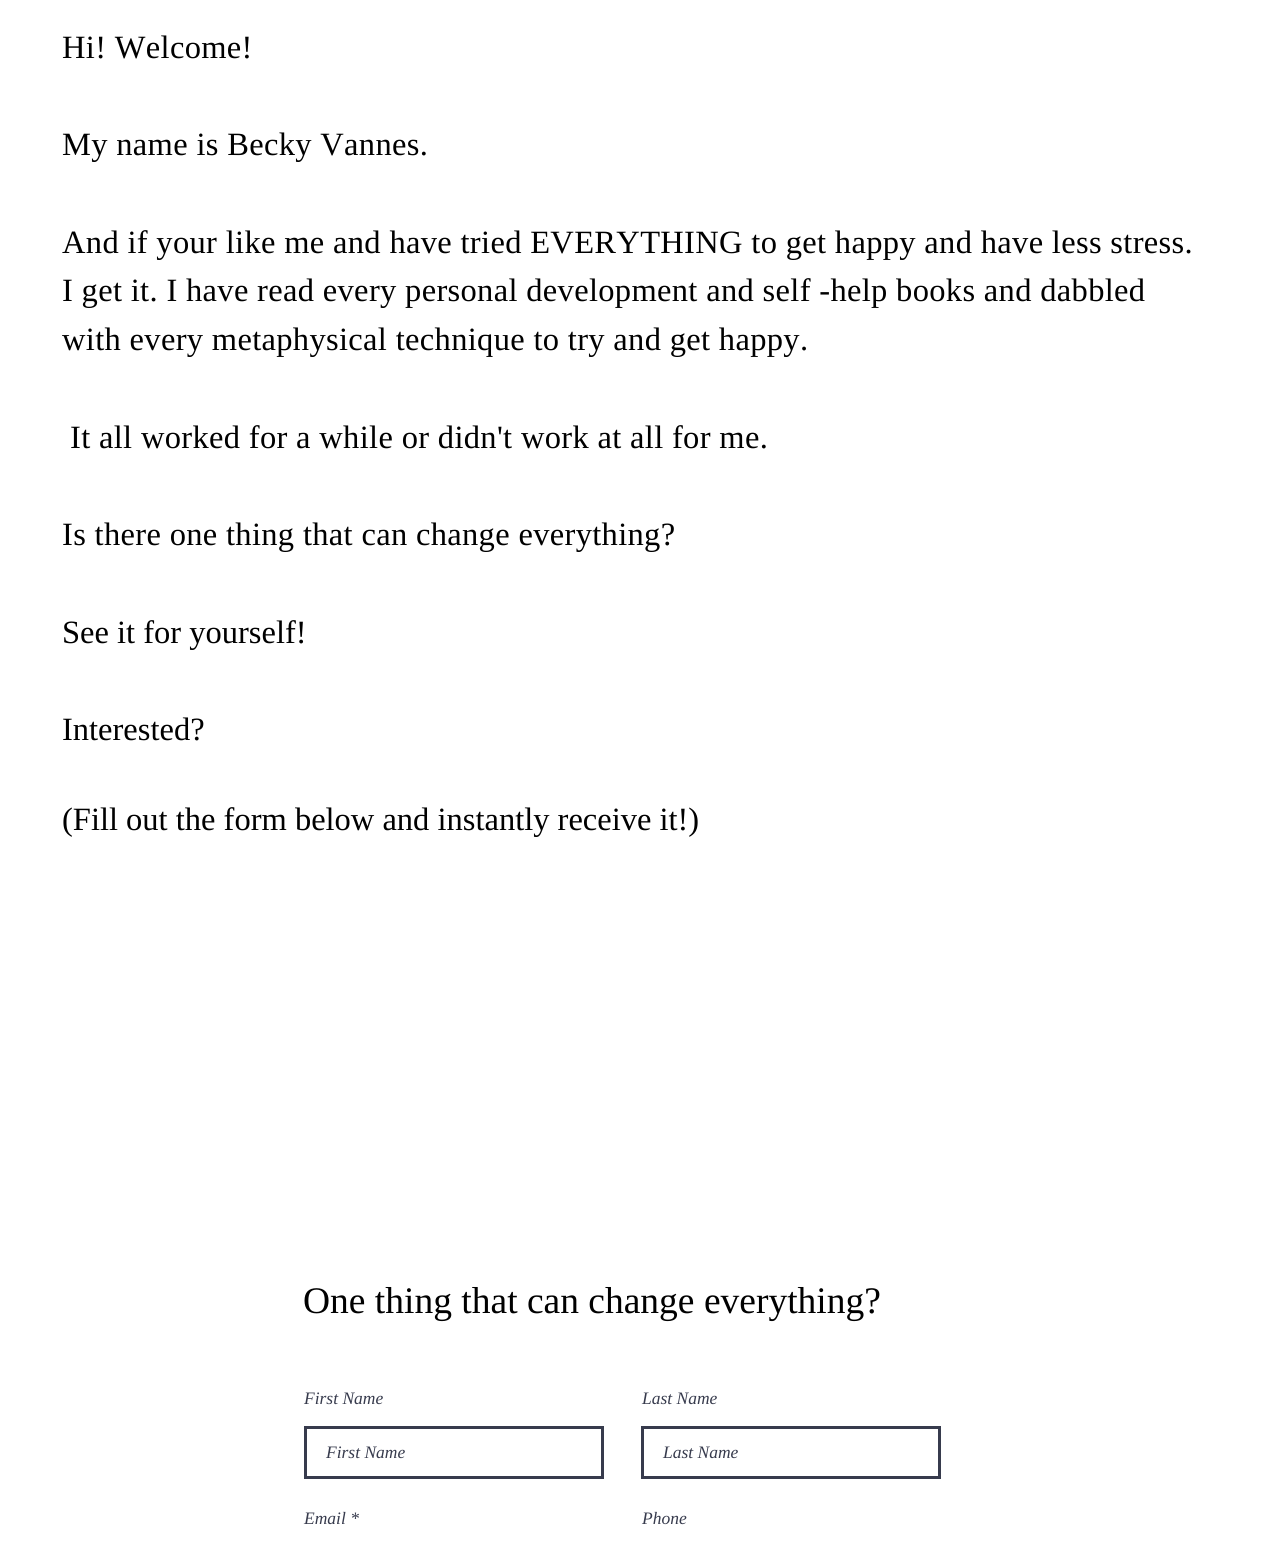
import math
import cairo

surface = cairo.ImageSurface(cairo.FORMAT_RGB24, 1266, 1544)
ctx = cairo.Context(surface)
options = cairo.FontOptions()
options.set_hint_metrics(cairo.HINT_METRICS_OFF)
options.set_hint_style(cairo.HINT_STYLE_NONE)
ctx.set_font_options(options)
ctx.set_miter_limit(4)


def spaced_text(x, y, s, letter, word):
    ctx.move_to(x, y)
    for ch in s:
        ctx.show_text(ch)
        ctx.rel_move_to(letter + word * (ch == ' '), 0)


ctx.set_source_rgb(1, 1, 1)
ctx.paint()
ctx.select_font_face("Liberation Serif")
ctx.set_font_size(32.5)
ctx.set_source_rgb(0, 0, 0)
spaced_text(62, 58, "Hi! Welcome!", 0.33, 0)
spaced_text(62, 155, "My name is Becky Vannes.", 0.33, 0)
spaced_text(62, 253, "And if your like me and have tried EVERYTHING to get happy and have less stress.", 0.33, 0)
spaced_text(62, 301, "I get it. I have read every personal development and self -help books and dabbled", 0.33, 0)
spaced_text(62, 350, "with every metaphysical technique to try and get happy.", 0.33, 0)
spaced_text(70, 448, "It all worked for a while or didn't work at all for me.", 0.33, 0)
spaced_text(62, 545, "Is there one thing that can change everything?", 0.33, 0)
ctx.move_to(62, 643)
ctx.show_text("See it for yourself!")
ctx.move_to(62, 740)
ctx.show_text("Interested?")
ctx.move_to(62, 830)
ctx.show_text("(Fill out the form below and instantly receive it!)")
ctx.set_font_size(37.5)
ctx.move_to(303, 1313)
ctx.show_text("One thing that can change everything?")
ctx.select_font_face("Liberation Serif", cairo.FONT_SLANT_ITALIC)
ctx.set_font_size(17.5)
ctx.set_source_rgb(0.216, 0.231, 0.302)
ctx.move_to(304, 1404)
ctx.show_text("First Name")
ctx.rectangle(305.5, 1427.5, 297, 50)
ctx.set_line_width(3)
ctx.stroke()
ctx.move_to(326, 1458)
ctx.show_text("First Name")
ctx.move_to(642, 1404)
ctx.show_text("Last Name")
ctx.rectangle(642.5, 1427.5, 297, 50)
ctx.stroke()
ctx.move_to(663, 1458)
ctx.show_text("Last Name")
ctx.move_to(304, 1524)
ctx.show_text("Email *")
ctx.move_to(642, 1524)
ctx.show_text("Phone")
surface.write_to_png("page.png")
